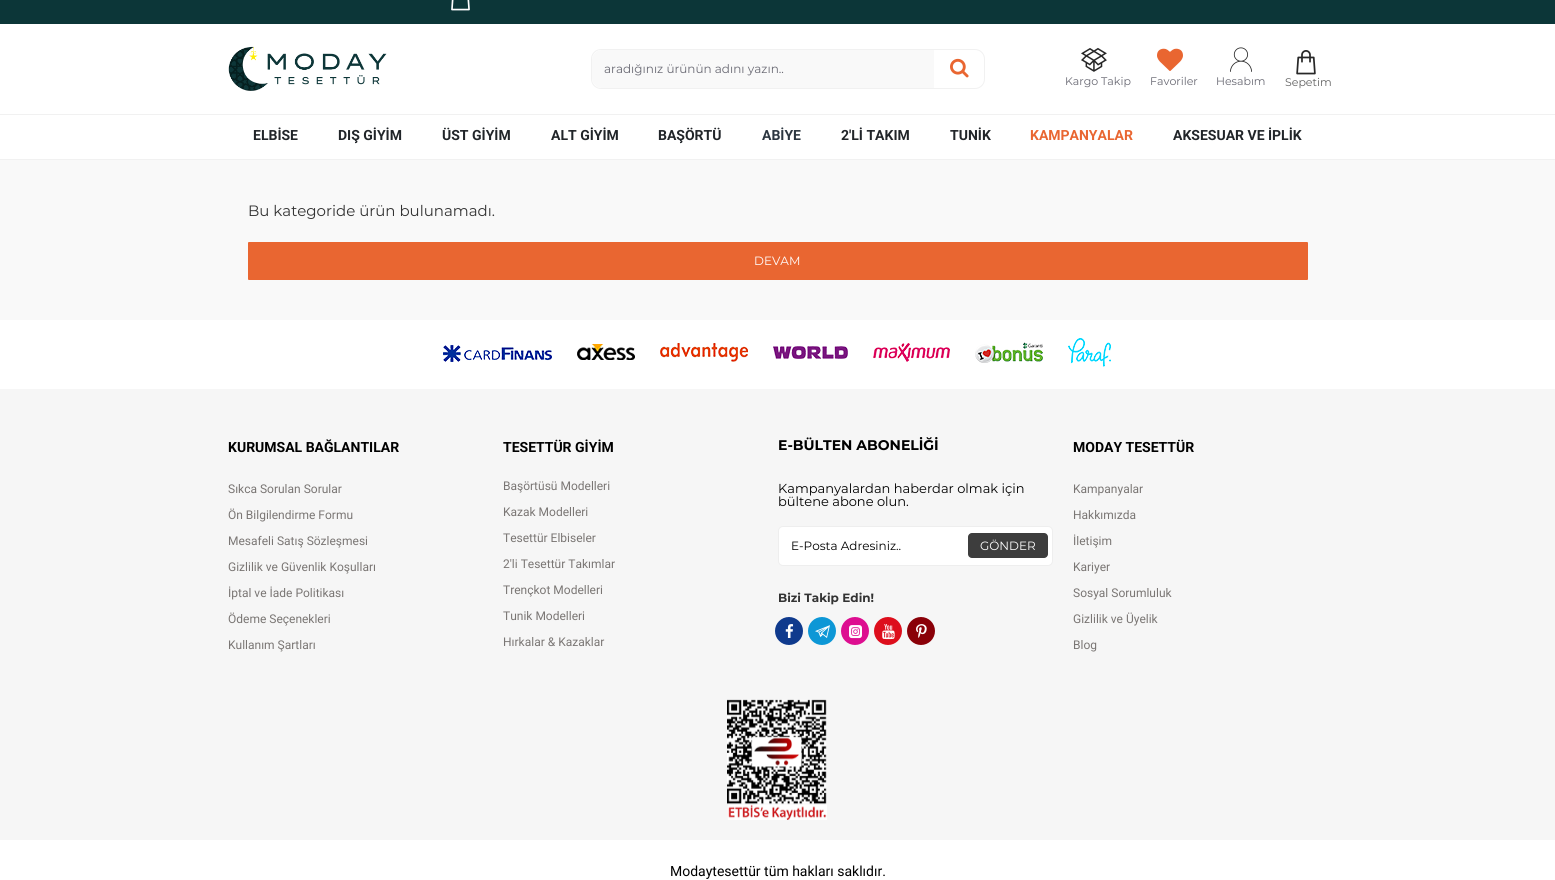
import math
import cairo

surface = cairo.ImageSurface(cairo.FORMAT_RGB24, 1555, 880)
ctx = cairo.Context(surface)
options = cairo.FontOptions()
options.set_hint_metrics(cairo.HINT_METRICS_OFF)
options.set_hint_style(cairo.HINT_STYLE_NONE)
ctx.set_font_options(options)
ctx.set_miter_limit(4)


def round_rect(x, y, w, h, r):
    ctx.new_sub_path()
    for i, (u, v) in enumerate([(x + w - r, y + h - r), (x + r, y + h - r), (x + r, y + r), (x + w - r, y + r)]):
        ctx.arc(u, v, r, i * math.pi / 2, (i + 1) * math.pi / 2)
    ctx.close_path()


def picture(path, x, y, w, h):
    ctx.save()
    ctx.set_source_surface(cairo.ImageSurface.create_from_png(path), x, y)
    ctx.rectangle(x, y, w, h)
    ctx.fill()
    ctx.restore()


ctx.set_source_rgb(0.976, 0.976, 0.976)
ctx.paint()
ctx.set_source_rgb(0.047, 0.212, 0.22)
ctx.rectangle(0, 0, 1555, 24)
ctx.fill()
picture("img1.png", 451, 0, 19, 11)
ctx.set_source_rgb(1, 1, 1)
ctx.rectangle(0, 24, 1555, 135)
ctx.fill()
ctx.set_source_rgb(0.945, 0.945, 0.945)
ctx.rectangle(0, 159, 1555, 1)
ctx.fill()
picture("img2.png", 228, 46, 159, 45)
round_rect(591.5, 49.5, 393, 39, 9.5)
ctx.set_line_width(1)
ctx.stroke()
ctx.set_source_rgb(0.976, 0.976, 0.976)
ctx.new_path()
ctx.move_to(602, 50)
ctx.line_to(934, 50)
ctx.line_to(934, 88)
ctx.line_to(602, 88)
ctx.curve_to(596.5, 88, 592, 83.5, 592, 78)
ctx.line_to(592, 60)
ctx.curve_to(592, 54.5, 596.5, 50, 602, 50)
ctx.close_path()
ctx.fill()
ctx.select_font_face("Montserrat")
ctx.set_font_size(12)
ctx.set_source_rgb(0.412, 0.412, 0.451)
ctx.move_to(604, 73)
ctx.show_text("aradığınız ürünün adını yazın..")
picture("img3.png", 950, 58, 19, 20)
picture("img4.png", 1081, 47, 26, 25)
ctx.set_font_size(11)
ctx.move_to(1065, 85)
ctx.show_text("Kargo Takip")
picture("img5.png", 1157, 48, 26, 23)
ctx.move_to(1150, 85)
ctx.show_text("Favoriler")
picture("img6.png", 1230, 47, 22, 25)
ctx.move_to(1216, 85)
ctx.show_text("Hesabım")
picture("img7.png", 1296, 50, 20, 25)
ctx.set_source_rgb(0.38, 0.38, 0.38)
ctx.move_to(1285, 86)
ctx.show_text("Sepetim")
ctx.set_source_rgb(0.945, 0.945, 0.945)
ctx.rectangle(0, 114, 1555, 1)
ctx.fill()
ctx.select_font_face("Roboto", cairo.FONT_SLANT_NORMAL, cairo.FONT_WEIGHT_BOLD)
ctx.set_font_size(14)
ctx.set_source_rgb(0.129, 0.145, 0.161)
ctx.move_to(253, 140)
ctx.show_text("ELBİSE")
ctx.move_to(338, 140)
ctx.show_text("DIŞ GİYİM")
ctx.move_to(442, 140)
ctx.show_text("ÜST GİYİM")
ctx.move_to(551, 140)
ctx.show_text("ALT GİYİM")
ctx.move_to(658, 140)
ctx.show_text("BAŞÖRTÜ")
ctx.set_source_rgb(0.173, 0.212, 0.251)
ctx.move_to(762, 140)
ctx.show_text("ABİYE")
ctx.set_source_rgb(0.129, 0.145, 0.161)
ctx.move_to(841, 140)
ctx.show_text("2'Lİ TAKIM")
ctx.move_to(950, 140)
ctx.show_text("TUNİK")
ctx.set_source_rgb(0.914, 0.4, 0.192)
ctx.move_to(1030, 140)
ctx.show_text("KAMPANYALAR")
ctx.set_source_rgb(0.129, 0.145, 0.161)
ctx.move_to(1173, 140)
ctx.show_text("AKSESUAR VE İPLİK")
ctx.select_font_face("Montserrat")
ctx.set_font_size(15)
ctx.set_source_rgb(0.2, 0.2, 0.2)
ctx.move_to(248, 216)
ctx.show_text("Bu kategoride ürün bulunamadı.")
ctx.set_source_rgb(0.914, 0.4, 0.192)
round_rect(248, 242, 1060, 38, 1)
ctx.fill()
ctx.set_font_size(12)
ctx.set_source_rgb(1, 1, 1)
ctx.move_to(754, 265)
ctx.show_text("DEVAM")
ctx.rectangle(0, 320, 1555, 69)
ctx.fill()
picture("img8.png", 443, 338, 668, 29)
ctx.set_source_rgb(0.961, 0.961, 0.961)
ctx.rectangle(0, 389, 1555, 451)
ctx.fill()
ctx.select_font_face("Roboto", cairo.FONT_SLANT_NORMAL, cairo.FONT_WEIGHT_BOLD)
ctx.set_font_size(14)
ctx.set_source_rgb(0, 0, 0)
ctx.move_to(228, 452)
ctx.show_text("KURUMSAL BAĞLANTILAR")
ctx.select_font_face("Roboto")
ctx.set_font_size(12)
ctx.set_source_rgb(0.478, 0.463, 0.455)
ctx.move_to(228, 493)
ctx.show_text("Sıkca Sorulan Sorular")
ctx.move_to(228, 519)
ctx.show_text("Ön Bilgilendirme Formu")
ctx.move_to(228, 545)
ctx.show_text("Mesafeli Satış Sözleşmesi")
ctx.move_to(228, 571)
ctx.show_text("Gizlilik ve Güvenlik Koşulları")
ctx.move_to(228, 597)
ctx.show_text("İptal ve İade Politikası")
ctx.move_to(228, 623)
ctx.show_text("Ödeme Seçenekleri")
ctx.move_to(228, 649)
ctx.show_text("Kullanım Şartları")
ctx.select_font_face("Roboto", cairo.FONT_SLANT_NORMAL, cairo.FONT_WEIGHT_BOLD)
ctx.set_font_size(14)
ctx.set_source_rgb(0, 0, 0)
ctx.move_to(503, 452)
ctx.show_text("TESETTÜR GİYİM")
ctx.select_font_face("Roboto")
ctx.set_font_size(12)
ctx.set_source_rgb(0.478, 0.463, 0.455)
ctx.move_to(503, 490)
ctx.show_text("Başörtüsü Modelleri")
ctx.move_to(503, 516)
ctx.show_text("Kazak Modelleri")
ctx.move_to(503, 542)
ctx.show_text("Tesettür Elbiseler")
ctx.move_to(503, 568)
ctx.show_text("2'li Tesettür Takımlar")
ctx.move_to(503, 594)
ctx.show_text("Trençkot Modelleri")
ctx.move_to(503, 620)
ctx.show_text("Tunik Modelleri")
ctx.move_to(503, 646)
ctx.show_text("Hırkalar & Kazaklar")
ctx.select_font_face("Montserrat", cairo.FONT_SLANT_NORMAL, cairo.FONT_WEIGHT_BOLD)
ctx.set_font_size(14)
ctx.set_source_rgb(0, 0, 0)
ctx.move_to(778, 450)
ctx.show_text("E-BÜLTEN ABONELİĞİ")
ctx.select_font_face("Montserrat")
ctx.set_font_size(13)
ctx.move_to(778, 493)
ctx.show_text("Kampanyalardan haberdar olmak için")
ctx.move_to(778, 506)
ctx.show_text("bültene abone olun.")
ctx.set_source_rgb(1, 1, 1)
round_rect(778.5, 526.5, 274, 39, 4.5)
ctx.fill_preserve()
ctx.set_source_rgb(0.933, 0.933, 0.933)
ctx.stroke()
ctx.set_font_size(12)
ctx.set_source_rgb(0, 0, 0)
ctx.move_to(791, 550)
ctx.show_text("E-Posta Adresiniz..")
ctx.set_source_rgb(0.239, 0.239, 0.239)
round_rect(968, 533, 80, 25, 4)
ctx.fill()
ctx.set_source_rgb(1, 1, 1)
ctx.move_to(980, 550)
ctx.show_text("GÖNDER")
ctx.select_font_face("Montserrat", cairo.FONT_SLANT_NORMAL, cairo.FONT_WEIGHT_BOLD)
ctx.set_source_rgb(0.2, 0.2, 0.2)
ctx.move_to(778, 602)
ctx.show_text("Bizi Takip Edin!")
ctx.set_source_rgb(0.059, 0.227, 0.553)
ctx.new_path()
ctx.arc(789, 631, 14, 0, 2 * math.pi)
ctx.fill()
picture("img9.png", 785, 624, 9, 14)
ctx.set_source_rgb(0.051, 0.592, 0.839)
ctx.arc(822, 631, 14, 0, 2 * math.pi)
ctx.fill()
picture("img10.png", 815, 625, 15, 13)
ctx.set_source_rgb(0.867, 0.055, 0.565)
ctx.arc(855, 631, 14, 0, 2 * math.pi)
ctx.fill()
picture("img11.png", 849, 625, 13, 14)
ctx.set_source_rgb(0.867, 0.055, 0.11)
ctx.arc(888, 631, 14, 0, 2 * math.pi)
ctx.fill()
picture("img12.png", 882, 624, 13, 16)
ctx.set_source_rgb(0.541, 0, 0.035)
ctx.arc(921, 631, 14, 0, 2 * math.pi)
ctx.fill()
picture("img13.png", 916, 624, 11, 14)
ctx.select_font_face("Roboto", cairo.FONT_SLANT_NORMAL, cairo.FONT_WEIGHT_BOLD)
ctx.set_font_size(14)
ctx.set_source_rgb(0, 0, 0)
ctx.move_to(1073, 452)
ctx.show_text("MODAY TESETTÜR")
ctx.select_font_face("Roboto")
ctx.set_font_size(12)
ctx.set_source_rgb(0.478, 0.463, 0.455)
ctx.move_to(1073, 493)
ctx.show_text("Kampanyalar")
ctx.move_to(1073, 519)
ctx.show_text("Hakkımızda")
ctx.move_to(1073, 545)
ctx.show_text("İletişim")
ctx.move_to(1073, 571)
ctx.show_text("Kariyer")
ctx.move_to(1073, 597)
ctx.show_text("Sosyal Sorumluluk")
ctx.move_to(1073, 623)
ctx.show_text("Gizlilik ve Üyelik")
ctx.move_to(1073, 649)
ctx.show_text("Blog")
picture("img14.png", 727, 699, 100, 121)
ctx.set_source_rgb(1, 1, 1)
ctx.rectangle(0, 840, 1555, 40)
ctx.fill()
ctx.set_font_size(14)
ctx.set_source_rgb(0, 0, 0)
ctx.move_to(670, 876)
ctx.show_text("Modaytesettür tüm hakları saklıdır.")
surface.write_to_png("page.png")
